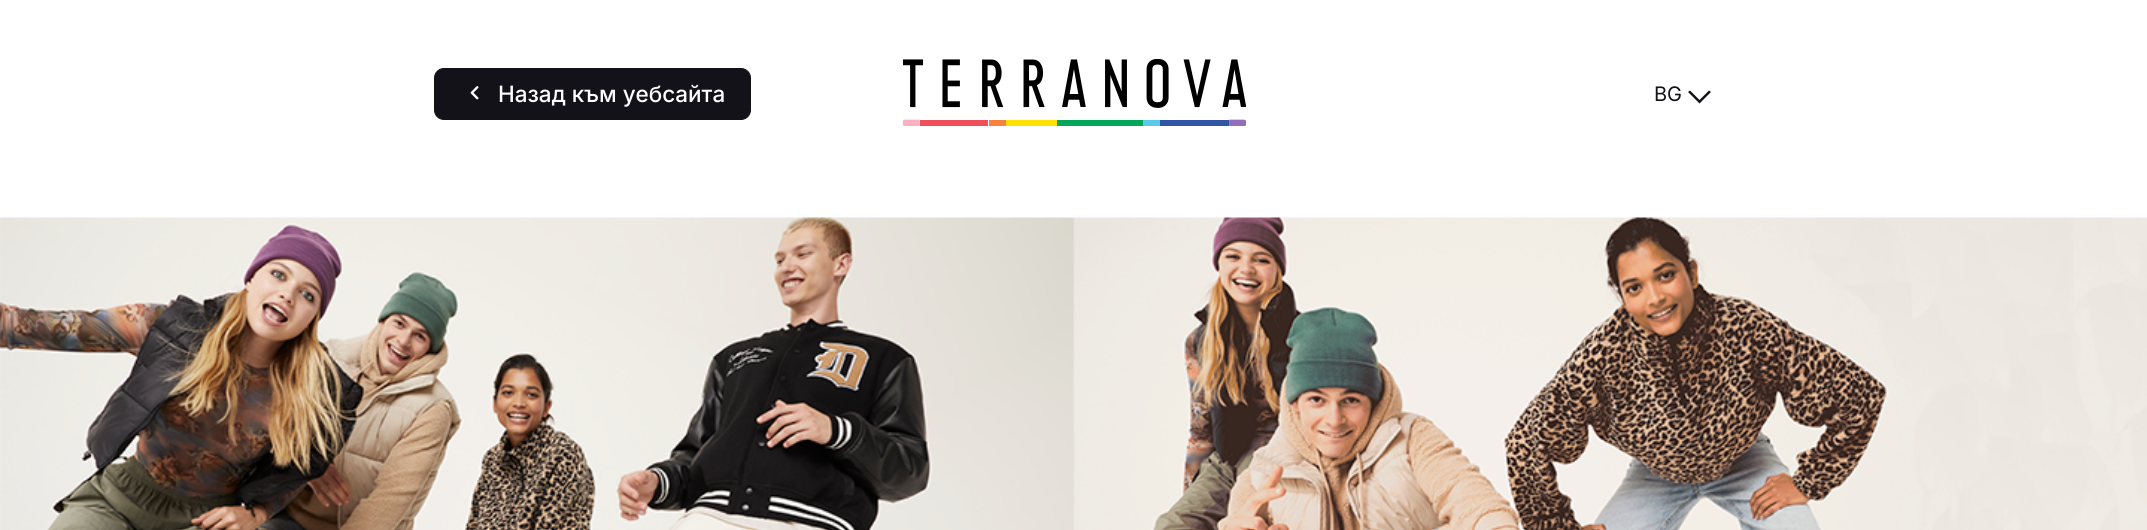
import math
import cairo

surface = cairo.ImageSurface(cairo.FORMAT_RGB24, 2147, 530)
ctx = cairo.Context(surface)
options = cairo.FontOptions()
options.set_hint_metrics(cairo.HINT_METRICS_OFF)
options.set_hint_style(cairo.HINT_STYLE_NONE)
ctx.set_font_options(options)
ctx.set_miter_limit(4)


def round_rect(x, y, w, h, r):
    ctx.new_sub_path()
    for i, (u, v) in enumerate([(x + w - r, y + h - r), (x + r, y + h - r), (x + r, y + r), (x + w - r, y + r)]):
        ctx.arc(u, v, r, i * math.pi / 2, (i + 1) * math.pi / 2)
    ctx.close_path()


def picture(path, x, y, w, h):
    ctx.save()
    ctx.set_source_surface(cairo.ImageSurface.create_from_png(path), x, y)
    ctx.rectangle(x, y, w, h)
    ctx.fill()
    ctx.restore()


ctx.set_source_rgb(1, 1, 1)
ctx.paint()
ctx.set_source_rgb(0.075, 0.071, 0.094)
round_rect(434.5, 68.5, 316, 51, 9.5)
ctx.fill_preserve()
ctx.set_line_width(1)
ctx.stroke()
picture("img1.png", 470, 86, 9, 14)
ctx.select_font_face("Inter Medium")
ctx.set_font_size(22.5)
ctx.set_source_rgb(1, 1, 1)
ctx.move_to(498, 102)
ctx.show_text("Назад към уебсайта")
picture("img2.png", 903, 59, 343, 67)
ctx.select_font_face("Inter")
ctx.set_font_size(20)
ctx.set_source_rgb(0.075, 0.071, 0.094)
ctx.move_to(1654, 101)
ctx.show_text("BG")
ctx.new_path()
ctx.move_to(1688, 92)
ctx.line_to(1690, 90.5)
ctx.line_to(1699.5, 100)
ctx.line_to(1709, 90.5)
ctx.line_to(1711, 92)
ctx.line_to(1699.5, 103.5)
ctx.close_path()
ctx.fill()
picture("img3.png", 0, 217, 2147, 313)
surface.write_to_png("page.png")
